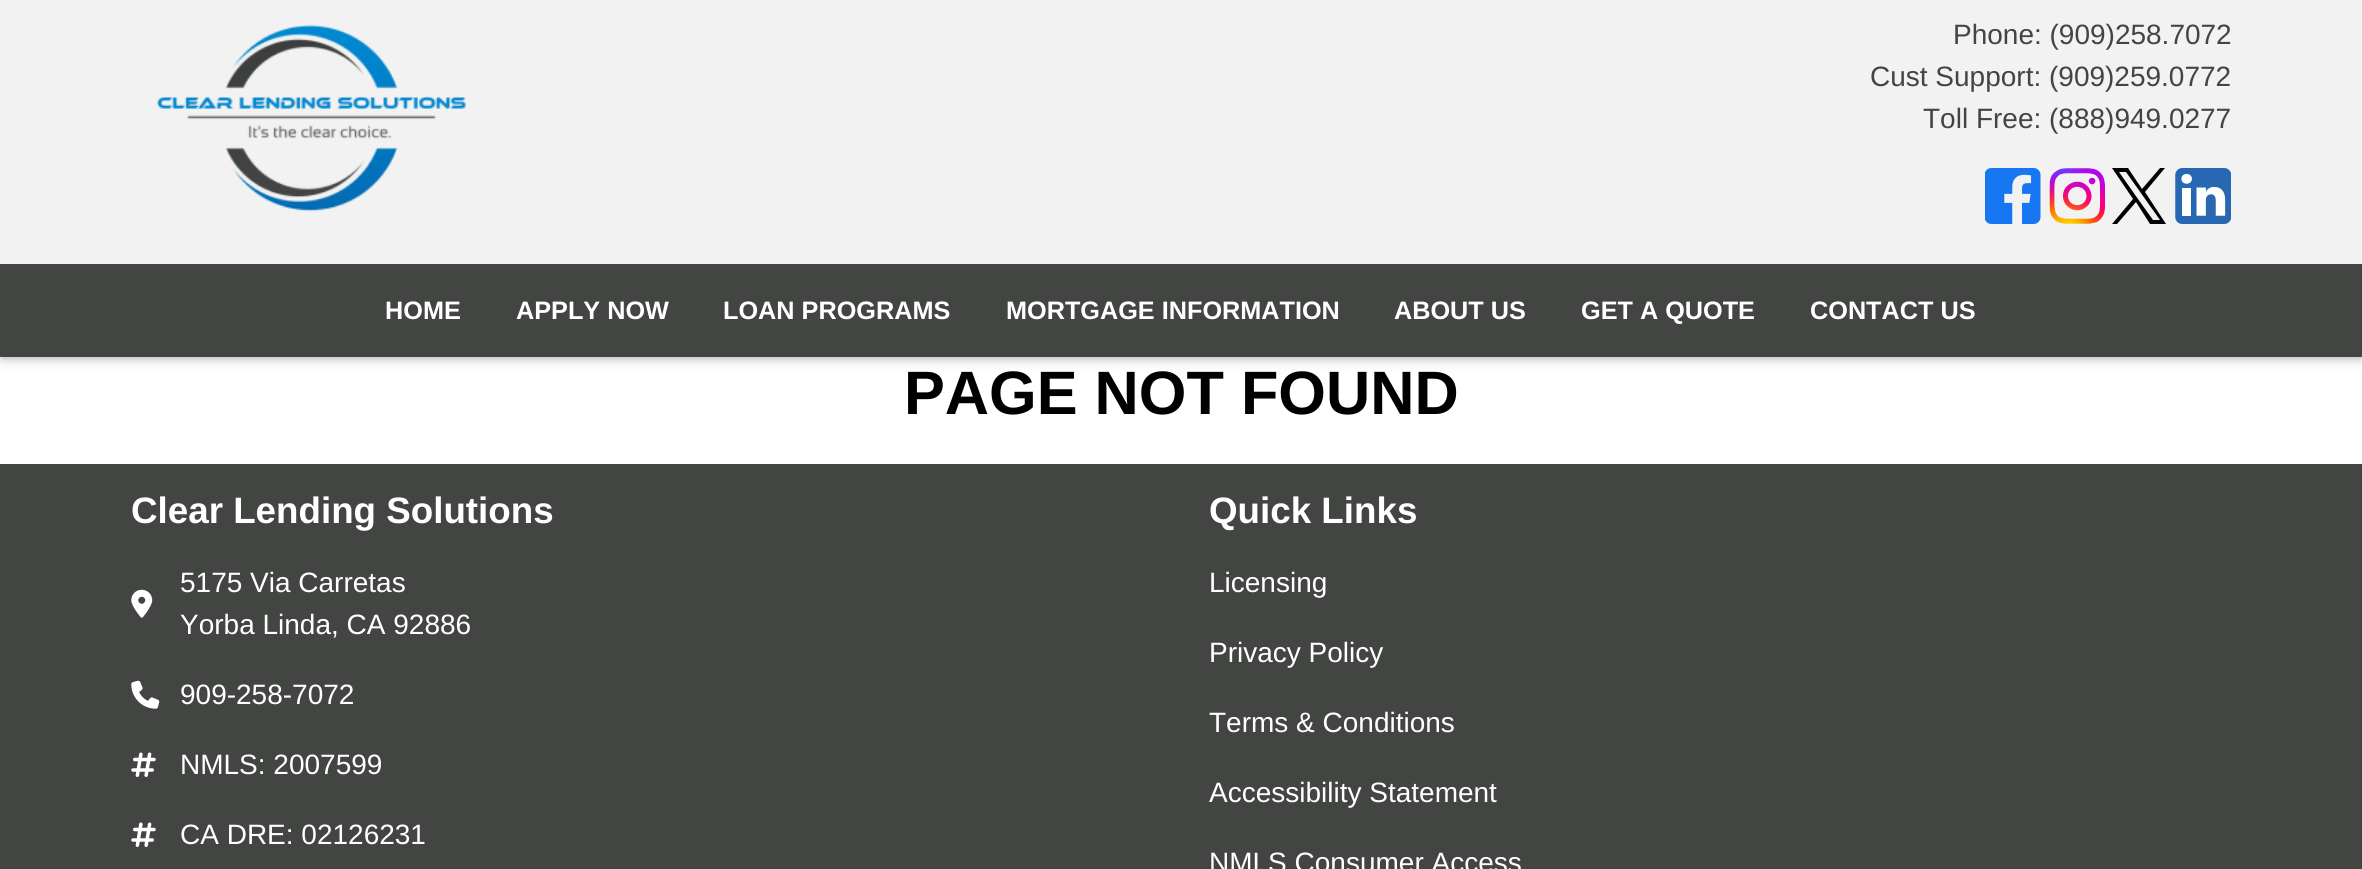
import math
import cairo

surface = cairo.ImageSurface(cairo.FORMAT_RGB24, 2362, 869)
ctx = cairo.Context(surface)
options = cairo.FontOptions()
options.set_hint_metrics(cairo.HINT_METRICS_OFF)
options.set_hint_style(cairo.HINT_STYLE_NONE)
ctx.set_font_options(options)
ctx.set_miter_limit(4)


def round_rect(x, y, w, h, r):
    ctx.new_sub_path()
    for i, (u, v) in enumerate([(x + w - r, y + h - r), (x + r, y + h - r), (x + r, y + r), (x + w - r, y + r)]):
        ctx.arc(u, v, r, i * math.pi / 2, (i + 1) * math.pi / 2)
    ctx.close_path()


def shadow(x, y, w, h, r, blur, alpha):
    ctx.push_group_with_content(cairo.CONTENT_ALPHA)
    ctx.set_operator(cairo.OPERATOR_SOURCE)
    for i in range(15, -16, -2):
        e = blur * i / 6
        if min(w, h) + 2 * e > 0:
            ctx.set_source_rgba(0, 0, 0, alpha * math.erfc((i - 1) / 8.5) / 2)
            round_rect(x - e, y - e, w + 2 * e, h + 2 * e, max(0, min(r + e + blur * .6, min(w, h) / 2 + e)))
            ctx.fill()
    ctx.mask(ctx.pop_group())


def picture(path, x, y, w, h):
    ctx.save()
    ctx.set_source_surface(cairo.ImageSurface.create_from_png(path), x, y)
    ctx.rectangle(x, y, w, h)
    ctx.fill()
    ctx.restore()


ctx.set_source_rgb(1, 1, 1)
ctx.paint()
ctx.set_source_rgb(0, 0, 0)
shadow(0, 2, 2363, 357, 0, 9, 0.1)
shadow(2, 5, 2359, 354, 0, 3.5, 0.2)
ctx.set_source_rgb(0.949, 0.949, 0.949)
ctx.rectangle(0, 0, 2362, 264)
ctx.fill()
picture("img1.png", 157, 24, 309, 188)
ctx.select_font_face("Liberation Sans")
ctx.set_font_size(28)
ctx.set_source_rgb(0.259, 0.271, 0.259)
ctx.move_to(1953, 44)
ctx.show_text("Phone: (909)258.7072")
ctx.move_to(1870, 86)
ctx.show_text("Cust Support: (909)259.0772")
ctx.move_to(1923, 128)
ctx.show_text("Toll Free: (888)949.0277")
picture("img2.png", 1985, 168, 56, 56)
picture("img3.png", 2049, 168, 56, 56)
ctx.set_source_rgb(0, 0, 0)
ctx.new_path()
ctx.move_to(2145, 192)
ctx.line_to(2165, 168)
ctx.line_to(2160, 168)
ctx.line_to(2142, 189)
ctx.line_to(2128, 168)
ctx.line_to(2112, 168)
ctx.line_to(2133, 199)
ctx.line_to(2112, 224)
ctx.line_to(2117, 224)
ctx.line_to(2136, 202)
ctx.line_to(2150, 224)
ctx.line_to(2166, 224)
ctx.close_path()
ctx.move_to(2138, 199)
ctx.line_to(2119, 172)
ctx.line_to(2126, 172)
ctx.line_to(2160, 220)
ctx.line_to(2153, 220)
ctx.close_path()
ctx.fill()
picture("img4.png", 2175, 168, 56, 56)
ctx.set_source_rgb(0.259, 0.271, 0.259)
ctx.rectangle(0, 264, 2362, 93)
ctx.fill()
ctx.select_font_face("Liberation Sans", cairo.FONT_SLANT_NORMAL, cairo.FONT_WEIGHT_BOLD)
ctx.set_font_size(25.25)
ctx.set_source_rgb(1, 1, 1)
ctx.move_to(385, 319)
ctx.show_text("HOME")
ctx.move_to(516, 319)
ctx.show_text("APPLY NOW")
ctx.move_to(723, 319)
ctx.show_text("LOAN PROGRAMS")
ctx.move_to(1006, 319)
ctx.show_text("MORTGAGE INFORMATION")
ctx.move_to(1394, 319)
ctx.show_text("ABOUT US")
ctx.move_to(1581, 319)
ctx.show_text("GET A QUOTE")
ctx.move_to(1810, 319)
ctx.show_text("CONTACT US")
ctx.set_font_size(61.25)
ctx.set_source_rgb(0, 0, 0)
ctx.move_to(904, 414)
ctx.show_text("PAGE NOT FOUND")
ctx.set_source_rgb(0.259, 0.271, 0.259)
ctx.rectangle(0, 464, 2362, 405)
ctx.fill()
ctx.set_font_size(36.75)
ctx.set_source_rgb(1, 1, 1)
ctx.move_to(131, 523)
ctx.show_text("Clear Lending Solutions")
picture("img5.png", 131, 589, 22, 29)
ctx.select_font_face("Liberation Sans")
ctx.set_font_size(28)
ctx.move_to(180, 592)
ctx.show_text("5175 Via Carretas")
ctx.move_to(180, 634)
ctx.show_text("Yorba Linda, CA 92886")
picture("img6.png", 131, 680, 29, 29)
ctx.move_to(180, 704)
ctx.show_text("909-258-7072")
picture("img7.png", 131, 752, 25, 25)
ctx.move_to(180, 774)
ctx.show_text("NMLS: 2007599")
picture("img7.png", 131, 822, 25, 25)
ctx.move_to(180, 844)
ctx.show_text("CA DRE: 02126231")
ctx.select_font_face("Liberation Sans", cairo.FONT_SLANT_NORMAL, cairo.FONT_WEIGHT_BOLD)
ctx.set_font_size(36.75)
ctx.move_to(1209, 523)
ctx.show_text("Quick Links")
ctx.select_font_face("Liberation Sans")
ctx.set_font_size(28)
ctx.move_to(1209, 592)
ctx.show_text("Licensing")
ctx.move_to(1209, 662)
ctx.show_text("Privacy Policy")
ctx.move_to(1209, 732)
ctx.show_text("Terms & Conditions")
ctx.move_to(1209, 802)
ctx.show_text("Accessibility Statement")
ctx.move_to(1209, 872)
ctx.show_text("NMLS Consumer Access")
surface.write_to_png("page.png")
